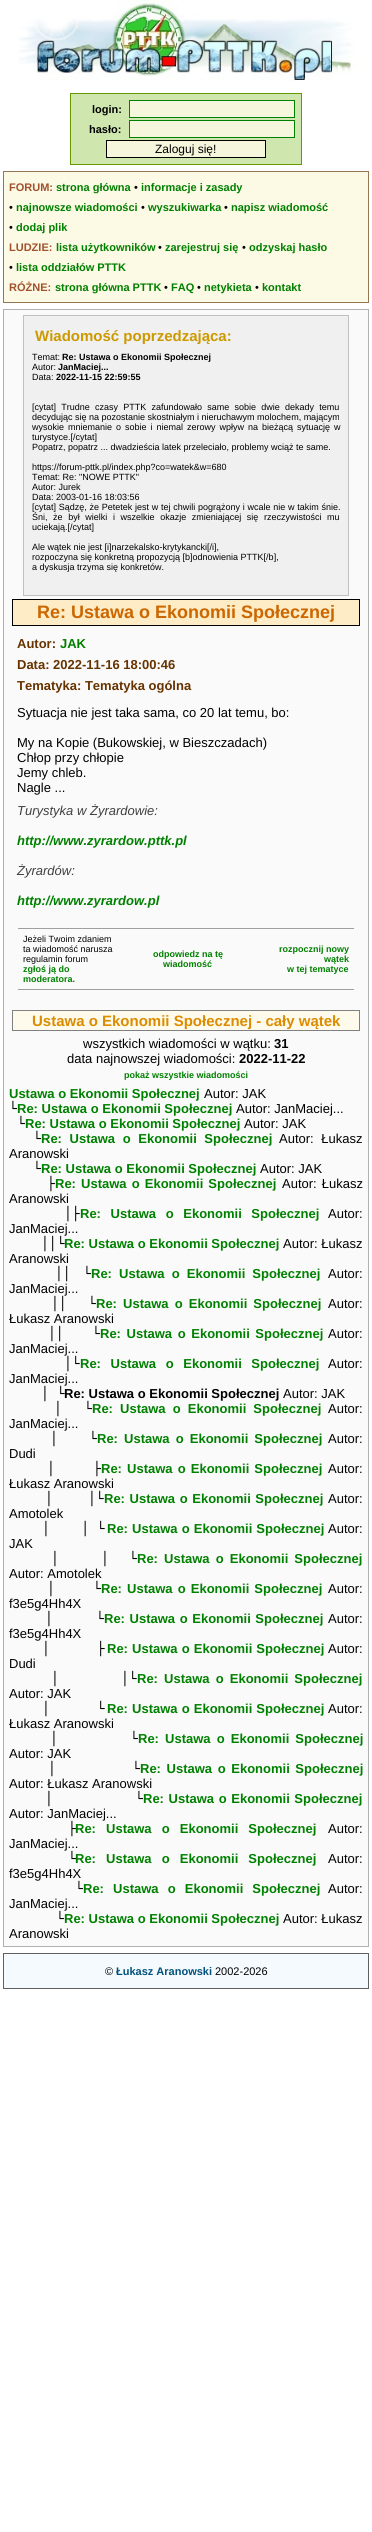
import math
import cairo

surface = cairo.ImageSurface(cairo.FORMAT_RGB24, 372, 2532)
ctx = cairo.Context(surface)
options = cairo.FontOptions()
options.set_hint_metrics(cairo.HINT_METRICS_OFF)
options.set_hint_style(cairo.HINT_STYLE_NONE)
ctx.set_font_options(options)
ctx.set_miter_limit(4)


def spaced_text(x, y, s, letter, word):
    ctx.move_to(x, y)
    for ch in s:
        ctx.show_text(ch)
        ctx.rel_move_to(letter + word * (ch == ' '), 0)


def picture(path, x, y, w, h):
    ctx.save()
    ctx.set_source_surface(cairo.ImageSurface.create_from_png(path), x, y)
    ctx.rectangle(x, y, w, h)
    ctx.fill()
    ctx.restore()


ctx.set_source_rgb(1, 1, 1)
ctx.paint()
picture("img1.png", 18, 0, 341, 81)
ctx.set_source_rgb(0.812, 0.902, 0.682)
ctx.rectangle(70.5, 93.5, 231, 71)
ctx.fill_preserve()
ctx.set_source_rgb(0.4, 0.6, 0)
ctx.set_line_width(1)
ctx.stroke()
ctx.select_font_face("Liberation Sans", cairo.FONT_SLANT_NORMAL, cairo.FONT_WEIGHT_BOLD)
ctx.set_font_size(11)
ctx.set_source_rgb(0, 0, 0)
ctx.move_to(92, 113)
ctx.show_text("login:")
ctx.set_source_rgb(0.961, 0.961, 0.863)
ctx.rectangle(129.5, 100.5, 165, 17)
ctx.fill_preserve()
ctx.set_source_rgb(0, 0.502, 0)
ctx.stroke()
ctx.set_source_rgb(0, 0, 0)
ctx.move_to(89, 133)
ctx.show_text("hasło:")
ctx.set_source_rgb(0.961, 0.961, 0.863)
ctx.rectangle(129.5, 120.5, 165, 17)
ctx.fill_preserve()
ctx.set_source_rgb(0, 0.502, 0)
ctx.stroke()
ctx.set_source_rgb(0.961, 0.961, 0.863)
ctx.rectangle(106.5, 140.5, 159, 17)
ctx.fill_preserve()
ctx.set_source_rgb(0, 0, 0)
ctx.stroke()
ctx.select_font_face("Liberation Sans")
ctx.set_font_size(12)
ctx.move_to(155, 153)
ctx.show_text("Zaloguj się!")
ctx.set_source_rgb(0.988, 0.976, 0.894)
ctx.rectangle(3.5, 171.5, 365, 131)
ctx.fill_preserve()
ctx.set_source_rgb(0.584, 0.467, 0.333)
ctx.stroke()
ctx.select_font_face("Liberation Sans", cairo.FONT_SLANT_NORMAL, cairo.FONT_WEIGHT_BOLD)
ctx.set_font_size(11)
ctx.set_source_rgb(0.627, 0.322, 0.176)
ctx.move_to(9, 191)
ctx.show_text("FORUM:")
ctx.set_source_rgb(0, 0.502, 0)
ctx.move_to(56, 191)
ctx.show_text("strona główna")
ctx.select_font_face("Liberation Sans")
ctx.set_source_rgb(0, 0, 0)
ctx.move_to(134, 191)
ctx.show_text("•")
ctx.select_font_face("Liberation Sans", cairo.FONT_SLANT_NORMAL, cairo.FONT_WEIGHT_BOLD)
ctx.set_source_rgb(0, 0.502, 0)
ctx.move_to(141, 191)
ctx.show_text("informacje i zasady")
ctx.select_font_face("Liberation Sans")
ctx.set_source_rgb(0, 0, 0)
ctx.move_to(9, 211)
ctx.show_text("•")
ctx.select_font_face("Liberation Sans", cairo.FONT_SLANT_NORMAL, cairo.FONT_WEIGHT_BOLD)
ctx.set_source_rgb(0, 0.502, 0)
ctx.move_to(16, 211)
ctx.show_text("najnowsze wiadomości")
ctx.select_font_face("Liberation Sans")
ctx.set_source_rgb(0, 0, 0)
ctx.move_to(141, 211)
ctx.show_text("•")
ctx.select_font_face("Liberation Sans", cairo.FONT_SLANT_NORMAL, cairo.FONT_WEIGHT_BOLD)
ctx.set_source_rgb(0, 0.502, 0)
ctx.move_to(148, 211)
ctx.show_text("wyszukiwarka")
ctx.select_font_face("Liberation Sans")
ctx.set_source_rgb(0, 0, 0)
ctx.move_to(224, 211)
ctx.show_text("•")
ctx.select_font_face("Liberation Sans", cairo.FONT_SLANT_NORMAL, cairo.FONT_WEIGHT_BOLD)
ctx.set_source_rgb(0, 0.502, 0)
ctx.move_to(231, 211)
ctx.show_text("napisz wiadomość")
ctx.select_font_face("Liberation Sans")
ctx.set_source_rgb(0, 0, 0)
ctx.move_to(9, 231)
ctx.show_text("•")
ctx.select_font_face("Liberation Sans", cairo.FONT_SLANT_NORMAL, cairo.FONT_WEIGHT_BOLD)
ctx.set_source_rgb(0, 0.502, 0)
ctx.move_to(16, 231)
ctx.show_text("dodaj plik")
ctx.set_source_rgb(0.627, 0.322, 0.176)
ctx.move_to(9, 251)
ctx.show_text("LUDZIE:")
ctx.set_source_rgb(0, 0.502, 0)
ctx.move_to(56, 251)
ctx.show_text("lista użytkowników")
ctx.select_font_face("Liberation Sans")
ctx.set_source_rgb(0, 0, 0)
ctx.move_to(158, 251)
ctx.show_text("•")
ctx.select_font_face("Liberation Sans", cairo.FONT_SLANT_NORMAL, cairo.FONT_WEIGHT_BOLD)
ctx.set_source_rgb(0, 0.502, 0)
ctx.move_to(165, 251)
ctx.show_text("zarejestruj się")
ctx.select_font_face("Liberation Sans")
ctx.set_source_rgb(0, 0, 0)
ctx.move_to(242, 251)
ctx.show_text("•")
ctx.select_font_face("Liberation Sans", cairo.FONT_SLANT_NORMAL, cairo.FONT_WEIGHT_BOLD)
ctx.set_source_rgb(0, 0.502, 0)
ctx.move_to(249, 251)
ctx.show_text("odzyskaj hasło")
ctx.select_font_face("Liberation Sans")
ctx.set_source_rgb(0, 0, 0)
ctx.move_to(9, 271)
ctx.show_text("•")
ctx.select_font_face("Liberation Sans", cairo.FONT_SLANT_NORMAL, cairo.FONT_WEIGHT_BOLD)
ctx.set_source_rgb(0, 0.502, 0)
ctx.move_to(16, 271)
ctx.show_text("lista oddziałów PTTK")
ctx.set_source_rgb(0.627, 0.322, 0.176)
ctx.move_to(9, 291)
ctx.show_text("RÓŻNE:")
ctx.set_source_rgb(0, 0.502, 0)
ctx.move_to(55, 291)
ctx.show_text("strona główna PTTK")
ctx.select_font_face("Liberation Sans")
ctx.set_source_rgb(0, 0, 0)
ctx.move_to(164, 291)
ctx.show_text("•")
ctx.select_font_face("Liberation Sans", cairo.FONT_SLANT_NORMAL, cairo.FONT_WEIGHT_BOLD)
ctx.set_source_rgb(0, 0.502, 0)
ctx.move_to(171, 291)
ctx.show_text("FAQ")
ctx.select_font_face("Liberation Sans")
ctx.set_source_rgb(0, 0, 0)
ctx.move_to(197, 291)
ctx.show_text("•")
ctx.select_font_face("Liberation Sans", cairo.FONT_SLANT_NORMAL, cairo.FONT_WEIGHT_BOLD)
ctx.set_source_rgb(0, 0.502, 0)
ctx.move_to(204, 291)
ctx.show_text("netykieta")
ctx.select_font_face("Liberation Sans")
ctx.set_source_rgb(0, 0, 0)
ctx.move_to(255, 291)
ctx.show_text("•")
ctx.select_font_face("Liberation Sans", cairo.FONT_SLANT_NORMAL, cairo.FONT_WEIGHT_BOLD)
ctx.set_source_rgb(0, 0.502, 0)
ctx.move_to(262, 291)
ctx.show_text("kontakt")
ctx.set_source_rgb(0.98, 0.98, 0.98)
ctx.rectangle(3.5, 309.5, 365, 1637)
ctx.fill_preserve()
ctx.set_source_rgb(0.694, 0.694, 0.694)
ctx.stroke()
ctx.set_source_rgb(0.941, 0.941, 0.941)
ctx.rectangle(23.5, 315.5, 325, 280)
ctx.fill_preserve()
ctx.set_source_rgb(0.753, 0.753, 0.753)
ctx.stroke()
ctx.set_font_size(15)
ctx.set_source_rgb(0.8, 0.6, 0)
ctx.move_to(35, 341)
ctx.show_text("Wiadomość poprzedzająca:")
ctx.select_font_face("Liberation Sans")
ctx.set_font_size(9)
ctx.set_source_rgb(0, 0, 0)
ctx.move_to(32, 360)
ctx.show_text("Temat:")
ctx.select_font_face("Liberation Sans", cairo.FONT_SLANT_NORMAL, cairo.FONT_WEIGHT_BOLD)
ctx.move_to(62, 360)
ctx.show_text("Re: Ustawa o Ekonomii Społecznej")
ctx.select_font_face("Liberation Sans")
ctx.move_to(32, 370)
ctx.show_text("Autor:")
ctx.select_font_face("Liberation Sans", cairo.FONT_SLANT_NORMAL, cairo.FONT_WEIGHT_BOLD)
ctx.move_to(58, 370)
ctx.show_text("JanMaciej...")
ctx.select_font_face("Liberation Sans")
ctx.move_to(32, 380)
ctx.show_text("Data:")
ctx.select_font_face("Liberation Sans", cairo.FONT_SLANT_NORMAL, cairo.FONT_WEIGHT_BOLD)
ctx.move_to(56, 380)
ctx.show_text("2022-11-15 22:59:55")
ctx.select_font_face("Liberation Sans")
spaced_text(32, 410, "[cytat] Trudne czasy PTTK zafundowało same sobie dwie dekady temu", 0, 2.75)
ctx.move_to(32, 420)
ctx.show_text("decydując się na pozostanie skostniałym i nieruchawym molochem, mającym")
spaced_text(32, 430, "wysokie mniemanie o sobie i niemal zerowy wpływ na bieżącą sytuację w", 0, 1.5)
ctx.move_to(32, 440)
ctx.show_text("turystyce.[/cytat]")
ctx.move_to(32, 450)
ctx.show_text("Popatrz, popatrz ... dwadzieścia latek przeleciało, problemy wciąż te same.")
ctx.move_to(32, 470)
ctx.show_text("https://forum-pttk.pl/index.php?co=watek&w=680")
ctx.move_to(32, 480)
ctx.show_text("Temat: Re: \"NOWE PTTK\"")
ctx.move_to(32, 490)
ctx.show_text("Autor: Jurek")
ctx.move_to(32, 500)
ctx.show_text("Data: 2003-01-16 18:03:56")
spaced_text(32, 510, "[cytat] Sądzę, że Petetek jest w tej chwili pogrążony i wcale nie w takim śnie.", 0, 0.25)
spaced_text(32, 520, "Śni, że był wielki i wszelkie okazje zmieniającej się rzeczywistości mu", 0, 3.1)
ctx.move_to(32, 530)
ctx.show_text("uciekają.[/cytat]")
ctx.move_to(32, 550)
ctx.show_text("Ale wątek nie jest [i]narzekalsko-krytykancki[/i],")
ctx.move_to(32, 560)
ctx.show_text("rozpoczyna się konkretną propozycją [b]odnowienia PTTK[/b],")
ctx.move_to(32, 570)
ctx.show_text("a dyskusja trzyma się konkretów.")
ctx.set_source_rgb(0.992, 0.925, 0.776)
ctx.rectangle(12.5, 599.5, 347, 26)
ctx.fill_preserve()
ctx.set_source_rgb(0, 0, 0)
ctx.stroke()
ctx.select_font_face("Liberation Sans", cairo.FONT_SLANT_NORMAL, cairo.FONT_WEIGHT_BOLD)
ctx.set_font_size(18)
ctx.set_source_rgb(0.8, 0.4, 0)
ctx.move_to(37, 618)
ctx.show_text("Re: Ustawa o Ekonomii Społecznej")
ctx.set_font_size(13)
ctx.set_source_rgb(0.4, 0.2, 0)
ctx.move_to(17, 648)
ctx.show_text("Autor:")
ctx.set_source_rgb(0, 0.502, 0)
ctx.move_to(60, 648)
ctx.show_text("JAK")
ctx.set_source_rgb(0.4, 0.2, 0)
ctx.move_to(17, 669)
ctx.show_text("Data: 2022-11-16 18:00:46")
ctx.move_to(17, 690)
ctx.show_text("Tematyka: Tematyka ogólna")
ctx.select_font_face("Liberation Sans")
ctx.set_source_rgb(0, 0, 0)
ctx.move_to(17, 717)
ctx.show_text("Sytuacja nie jest taka sama, co 20 lat temu, bo:")
ctx.move_to(17, 747)
ctx.show_text("My na Kopie (Bukowskiej, w Bieszczadach)")
ctx.move_to(17, 762)
ctx.show_text("Chłop przy chłopie")
ctx.move_to(17, 777)
ctx.show_text("Jemy chleb.")
ctx.move_to(17, 792)
ctx.show_text("Nagle ...")
ctx.select_font_face("Liberation Sans", cairo.FONT_SLANT_ITALIC)
ctx.set_source_rgb(0.251, 0.251, 0.251)
ctx.move_to(17, 815)
ctx.show_text("Turystyka w Żyrardowie:")
ctx.select_font_face("Liberation Sans", cairo.FONT_SLANT_ITALIC, cairo.FONT_WEIGHT_BOLD)
ctx.set_source_rgb(0, 0.502, 0)
ctx.move_to(17, 845)
ctx.show_text("http://www.zyrardow.pttk.pl")
ctx.select_font_face("Liberation Sans", cairo.FONT_SLANT_ITALIC)
ctx.set_source_rgb(0.251, 0.251, 0.251)
ctx.move_to(17, 875)
ctx.show_text("Żyrardów:")
ctx.select_font_face("Liberation Sans", cairo.FONT_SLANT_ITALIC, cairo.FONT_WEIGHT_BOLD)
ctx.set_source_rgb(0, 0.502, 0)
ctx.move_to(17, 905)
ctx.show_text("http://www.zyrardow.pl")
ctx.set_source_rgb(0.627, 0.627, 0.627)
ctx.rectangle(18, 928, 336, 1)
ctx.fill()
ctx.rectangle(18, 989, 336, 1)
ctx.fill()
ctx.select_font_face("Liberation Sans")
ctx.set_font_size(9)
ctx.set_source_rgb(0, 0, 0)
ctx.move_to(23, 942)
ctx.show_text("Jeżeli Twoim zdaniem")
ctx.move_to(23, 952)
ctx.show_text("ta wiadomość narusza")
ctx.move_to(23, 962)
ctx.show_text("regulamin forum")
ctx.select_font_face("Liberation Sans", cairo.FONT_SLANT_NORMAL, cairo.FONT_WEIGHT_BOLD)
ctx.set_source_rgb(0, 0.502, 0)
ctx.move_to(23, 972)
ctx.show_text("zgłoś ją do")
ctx.move_to(23, 982)
ctx.show_text("moderatora.")
ctx.move_to(153, 957)
ctx.show_text("odpowiedz na tę")
ctx.move_to(163, 967)
ctx.show_text("wiadomość")
ctx.move_to(279, 952)
ctx.show_text("rozpocznij nowy")
ctx.move_to(324, 962)
ctx.show_text("wątek")
ctx.move_to(287, 972)
ctx.show_text("w tej tematyce")
ctx.set_source_rgb(0.996, 0.98, 0.925)
ctx.rectangle(12.5, 1010.5, 347, 20)
ctx.fill_preserve()
ctx.set_source_rgb(0.502, 0.502, 0.502)
ctx.stroke()
ctx.set_font_size(15)
ctx.set_source_rgb(0.863, 0.549, 0)
ctx.move_to(32, 1026)
ctx.show_text("Ustawa o Ekonomii Społecznej - cały wątek")
ctx.select_font_face("Liberation Sans")
ctx.set_font_size(13)
ctx.set_source_rgb(0, 0, 0)
ctx.move_to(83, 1048)
ctx.show_text("wszystkich wiadomości w wątku:")
ctx.select_font_face("Liberation Sans", cairo.FONT_SLANT_NORMAL, cairo.FONT_WEIGHT_BOLD)
ctx.move_to(274, 1048)
ctx.show_text("31")
ctx.select_font_face("Liberation Sans")
ctx.move_to(67, 1063)
ctx.show_text("data najnowszej wiadomości:")
ctx.select_font_face("Liberation Sans", cairo.FONT_SLANT_NORMAL, cairo.FONT_WEIGHT_BOLD)
ctx.move_to(239, 1063)
ctx.show_text("2022-11-22")
ctx.set_font_size(9)
ctx.set_source_rgb(0, 0.502, 0)
ctx.move_to(124, 1078)
ctx.show_text("pokaż wszystkie wiadomości")
ctx.set_font_size(13)
ctx.move_to(9, 1098)
ctx.show_text("Ustawa o Ekonomii Społecznej")
ctx.select_font_face("Liberation Sans")
ctx.set_source_rgb(0, 0, 0)
ctx.move_to(204, 1098)
ctx.show_text("Autor: JAK")
ctx.select_font_face("DejaVu Sans Mono")
ctx.move_to(9, 1113)
ctx.show_text("└")
ctx.select_font_face("Liberation Sans", cairo.FONT_SLANT_NORMAL, cairo.FONT_WEIGHT_BOLD)
ctx.set_source_rgb(0, 0.502, 0)
ctx.move_to(17, 1113)
ctx.show_text("Re: Ustawa o Ekonomii Społecznej")
ctx.select_font_face("Liberation Sans")
ctx.set_source_rgb(0, 0, 0)
ctx.move_to(236, 1113)
ctx.show_text("Autor: JanMaciej...")
ctx.select_font_face("DejaVu Sans Mono")
ctx.move_to(17, 1128)
ctx.show_text("└")
ctx.select_font_face("Liberation Sans", cairo.FONT_SLANT_NORMAL, cairo.FONT_WEIGHT_BOLD)
ctx.set_source_rgb(0, 0.502, 0)
ctx.move_to(25, 1128)
ctx.show_text("Re: Ustawa o Ekonomii Społecznej")
ctx.select_font_face("Liberation Sans")
ctx.set_source_rgb(0, 0, 0)
ctx.move_to(244, 1128)
ctx.show_text("Autor: JAK")
ctx.select_font_face("DejaVu Sans Mono")
ctx.move_to(33, 1143)
ctx.show_text("└")
ctx.select_font_face("Liberation Sans", cairo.FONT_SLANT_NORMAL, cairo.FONT_WEIGHT_BOLD)
ctx.set_source_rgb(0, 0.502, 0)
spaced_text(41, 1143, "Re: Ustawa o Ekonomii Społecznej", 0, 4)
ctx.select_font_face("Liberation Sans")
ctx.set_source_rgb(0, 0, 0)
spaced_text(279, 1143, "Autor: Łukasz", 0, 4)
ctx.move_to(9, 1158)
ctx.show_text("Aranowski")
ctx.select_font_face("DejaVu Sans Mono")
ctx.move_to(33, 1173)
ctx.show_text("└")
ctx.select_font_face("Liberation Sans", cairo.FONT_SLANT_NORMAL, cairo.FONT_WEIGHT_BOLD)
ctx.set_source_rgb(0, 0.502, 0)
ctx.move_to(41, 1173)
ctx.show_text("Re: Ustawa o Ekonomii Społecznej")
ctx.select_font_face("Liberation Sans")
ctx.set_source_rgb(0, 0, 0)
ctx.move_to(260, 1173)
ctx.show_text("Autor: JAK")
ctx.select_font_face("DejaVu Sans Mono")
ctx.move_to(47, 1188)
ctx.show_text("├")
ctx.select_font_face("Liberation Sans", cairo.FONT_SLANT_NORMAL, cairo.FONT_WEIGHT_BOLD)
ctx.set_source_rgb(0, 0.502, 0)
spaced_text(55, 1188, "Re: Ustawa o Ekonomii Społecznej", 0, 1.5)
ctx.select_font_face("Liberation Sans")
ctx.set_source_rgb(0, 0, 0)
spaced_text(282, 1188, "Autor: Łukasz", 0, 1.5)
ctx.move_to(9, 1203)
ctx.show_text("Aranowski")
ctx.select_font_face("DejaVu Sans Mono")
ctx.move_to(64, 1218)
ctx.show_text("│├")
ctx.select_font_face("Liberation Sans", cairo.FONT_SLANT_NORMAL, cairo.FONT_WEIGHT_BOLD)
ctx.set_source_rgb(0, 0.502, 0)
spaced_text(80, 1218, "Re: Ustawa o Ekonomii Społecznej", 0, 6)
ctx.select_font_face("Liberation Sans")
ctx.set_source_rgb(0, 0, 0)
ctx.move_to(328, 1218)
ctx.show_text("Autor:")
ctx.move_to(9, 1233)
ctx.show_text("JanMaciej...")
ctx.select_font_face("DejaVu Sans Mono")
ctx.move_to(41, 1248)
ctx.show_text("││└")
ctx.select_font_face("Liberation Sans", cairo.FONT_SLANT_NORMAL, cairo.FONT_WEIGHT_BOLD)
ctx.set_source_rgb(0, 0.502, 0)
ctx.move_to(64, 1248)
ctx.show_text("Re: Ustawa o Ekonomii Społecznej")
ctx.select_font_face("Liberation Sans")
ctx.set_source_rgb(0, 0, 0)
ctx.move_to(283, 1248)
ctx.show_text("Autor: Łukasz")
ctx.move_to(9, 1263)
ctx.show_text("Aranowski")
ctx.select_font_face("DejaVu Sans Mono")
ctx.move_to(55, 1278)
ctx.show_text("││")
ctx.move_to(83, 1278)
ctx.show_text("└")
ctx.select_font_face("Liberation Sans", cairo.FONT_SLANT_NORMAL, cairo.FONT_WEIGHT_BOLD)
ctx.set_source_rgb(0, 0.502, 0)
spaced_text(91, 1278, "Re: Ustawa o Ekonomii Społecznej", 0, 3.5)
ctx.select_font_face("Liberation Sans")
ctx.set_source_rgb(0, 0, 0)
ctx.move_to(328, 1278)
ctx.show_text("Autor:")
ctx.move_to(9, 1293)
ctx.show_text("JanMaciej...")
ctx.select_font_face("DejaVu Sans Mono")
ctx.move_to(51, 1308)
ctx.show_text("││")
ctx.move_to(88, 1308)
ctx.show_text("└")
ctx.select_font_face("Liberation Sans", cairo.FONT_SLANT_NORMAL, cairo.FONT_WEIGHT_BOLD)
ctx.set_source_rgb(0, 0.502, 0)
spaced_text(96, 1308, "Re: Ustawa o Ekonomii Społecznej", 0, 2.5)
ctx.select_font_face("Liberation Sans")
ctx.set_source_rgb(0, 0, 0)
ctx.move_to(328, 1308)
ctx.show_text("Autor:")
ctx.move_to(9, 1323)
ctx.show_text("Łukasz Aranowski")
ctx.select_font_face("DejaVu Sans Mono")
ctx.move_to(48, 1338)
ctx.show_text("││")
ctx.move_to(92, 1338)
ctx.show_text("└")
ctx.select_font_face("Liberation Sans", cairo.FONT_SLANT_NORMAL, cairo.FONT_WEIGHT_BOLD)
ctx.set_source_rgb(0, 0.502, 0)
spaced_text(100, 1338, "Re: Ustawa o Ekonomii Społecznej", 0, 2)
ctx.select_font_face("Liberation Sans")
ctx.set_source_rgb(0, 0, 0)
ctx.move_to(328, 1338)
ctx.show_text("Autor:")
ctx.move_to(9, 1353)
ctx.show_text("JanMaciej...")
ctx.select_font_face("DejaVu Sans Mono")
ctx.move_to(64, 1368)
ctx.show_text("│└")
ctx.select_font_face("Liberation Sans", cairo.FONT_SLANT_NORMAL, cairo.FONT_WEIGHT_BOLD)
ctx.set_source_rgb(0, 0.502, 0)
spaced_text(80, 1368, "Re: Ustawa o Ekonomii Społecznej", 0, 6)
ctx.select_font_face("Liberation Sans")
ctx.set_source_rgb(0, 0, 0)
ctx.move_to(328, 1368)
ctx.show_text("Autor:")
ctx.move_to(9, 1383)
ctx.show_text("JanMaciej...")
ctx.select_font_face("DejaVu Sans Mono")
ctx.move_to(41, 1398)
ctx.show_text("│ └")
ctx.select_font_face("Liberation Sans", cairo.FONT_SLANT_NORMAL, cairo.FONT_WEIGHT_BOLD)
ctx.move_to(64, 1398)
ctx.show_text("Re: Ustawa o Ekonomii Społecznej")
ctx.select_font_face("Liberation Sans")
ctx.move_to(283, 1398)
ctx.show_text("Autor: JAK")
ctx.select_font_face("DejaVu Sans Mono")
ctx.move_to(54, 1413)
ctx.show_text("│")
ctx.move_to(84, 1413)
ctx.show_text("└")
ctx.select_font_face("Liberation Sans", cairo.FONT_SLANT_NORMAL, cairo.FONT_WEIGHT_BOLD)
ctx.set_source_rgb(0, 0.502, 0)
spaced_text(92, 1413, "Re: Ustawa o Ekonomii Społecznej", 0, 3.5)
ctx.select_font_face("Liberation Sans")
ctx.set_source_rgb(0, 0, 0)
ctx.move_to(328, 1413)
ctx.show_text("Autor:")
ctx.move_to(9, 1428)
ctx.show_text("JanMaciej...")
ctx.select_font_face("DejaVu Sans Mono")
ctx.move_to(50, 1443)
ctx.show_text("│")
ctx.move_to(89, 1443)
ctx.show_text("└")
ctx.select_font_face("Liberation Sans", cairo.FONT_SLANT_NORMAL, cairo.FONT_WEIGHT_BOLD)
ctx.set_source_rgb(0, 0.502, 0)
spaced_text(97, 1443, "Re: Ustawa o Ekonomii Społecznej", 0, 2.5)
ctx.select_font_face("Liberation Sans")
ctx.set_source_rgb(0, 0, 0)
ctx.move_to(328, 1443)
ctx.show_text("Autor:")
ctx.move_to(9, 1458)
ctx.show_text("Dudi")
ctx.select_font_face("DejaVu Sans Mono")
ctx.move_to(47, 1473)
ctx.show_text("│")
ctx.move_to(93, 1473)
ctx.show_text("├")
ctx.select_font_face("Liberation Sans", cairo.FONT_SLANT_NORMAL, cairo.FONT_WEIGHT_BOLD)
ctx.set_source_rgb(0, 0.502, 0)
spaced_text(101, 1473, "Re: Ustawa o Ekonomii Społecznej", 0, 1.5)
ctx.select_font_face("Liberation Sans")
ctx.set_source_rgb(0, 0, 0)
ctx.move_to(328, 1473)
ctx.show_text("Autor:")
ctx.move_to(9, 1488)
ctx.show_text("Łukasz Aranowski")
ctx.select_font_face("DejaVu Sans Mono")
ctx.move_to(45, 1503)
ctx.show_text("│")
ctx.move_to(88, 1503)
ctx.show_text("│└")
ctx.select_font_face("Liberation Sans", cairo.FONT_SLANT_NORMAL, cairo.FONT_WEIGHT_BOLD)
ctx.set_source_rgb(0, 0.502, 0)
spaced_text(104, 1503, "Re: Ustawa o Ekonomii Społecznej", 0, 1)
ctx.select_font_face("Liberation Sans")
ctx.set_source_rgb(0, 0, 0)
ctx.move_to(328, 1503)
ctx.show_text("Autor:")
ctx.move_to(9, 1518)
ctx.show_text("Amotolek")
ctx.select_font_face("DejaVu Sans Mono")
ctx.move_to(42, 1533)
ctx.show_text("│    │ └")
ctx.select_font_face("Liberation Sans", cairo.FONT_SLANT_NORMAL, cairo.FONT_WEIGHT_BOLD)
ctx.set_source_rgb(0, 0.502, 0)
spaced_text(107, 1533, "Re: Ustawa o Ekonomii Społecznej", 0, 0.5)
ctx.select_font_face("Liberation Sans")
ctx.set_source_rgb(0, 0, 0)
ctx.move_to(328, 1533)
ctx.show_text("Autor:")
ctx.move_to(9, 1548)
ctx.show_text("JAK")
ctx.select_font_face("DejaVu Sans Mono")
ctx.move_to(51, 1563)
ctx.show_text("│")
ctx.move_to(101, 1563)
ctx.show_text("│")
ctx.move_to(129, 1563)
ctx.show_text("└")
ctx.select_font_face("Liberation Sans", cairo.FONT_SLANT_NORMAL, cairo.FONT_WEIGHT_BOLD)
ctx.set_source_rgb(0, 0.502, 0)
spaced_text(137, 1563, "Re: Ustawa o Ekonomii Społecznej", 0, 2.5)
ctx.select_font_face("Liberation Sans")
ctx.set_source_rgb(0, 0, 0)
ctx.move_to(9, 1578)
ctx.show_text("Autor: Amotolek")
ctx.select_font_face("DejaVu Sans Mono")
ctx.move_to(47, 1593)
ctx.show_text("│")
ctx.move_to(93, 1593)
ctx.show_text("└")
ctx.select_font_face("Liberation Sans", cairo.FONT_SLANT_NORMAL, cairo.FONT_WEIGHT_BOLD)
ctx.set_source_rgb(0, 0.502, 0)
spaced_text(101, 1593, "Re: Ustawa o Ekonomii Społecznej", 0, 1.5)
ctx.select_font_face("Liberation Sans")
ctx.set_source_rgb(0, 0, 0)
ctx.move_to(328, 1593)
ctx.show_text("Autor:")
ctx.move_to(9, 1608)
ctx.show_text("f3e5g4Hh4X")
ctx.select_font_face("DejaVu Sans Mono")
ctx.move_to(45, 1623)
ctx.show_text("│")
ctx.move_to(96, 1623)
ctx.show_text("└")
ctx.select_font_face("Liberation Sans", cairo.FONT_SLANT_NORMAL, cairo.FONT_WEIGHT_BOLD)
ctx.set_source_rgb(0, 0.502, 0)
spaced_text(104, 1623, "Re: Ustawa o Ekonomii Społecznej", 0, 1)
ctx.select_font_face("Liberation Sans")
ctx.set_source_rgb(0, 0, 0)
ctx.move_to(328, 1623)
ctx.show_text("Autor:")
ctx.move_to(9, 1638)
ctx.show_text("f3e5g4Hh4X")
ctx.select_font_face("DejaVu Sans Mono")
ctx.move_to(42, 1653)
ctx.show_text("│      ├")
ctx.select_font_face("Liberation Sans", cairo.FONT_SLANT_NORMAL, cairo.FONT_WEIGHT_BOLD)
ctx.set_source_rgb(0, 0.502, 0)
spaced_text(107, 1653, "Re: Ustawa o Ekonomii Społecznej", 0, 0.5)
ctx.select_font_face("Liberation Sans")
ctx.set_source_rgb(0, 0, 0)
ctx.move_to(328, 1653)
ctx.show_text("Autor:")
ctx.move_to(9, 1668)
ctx.show_text("Dudi")
ctx.select_font_face("DejaVu Sans Mono")
ctx.move_to(51, 1683)
ctx.show_text("│")
ctx.move_to(121, 1683)
ctx.show_text("│└")
ctx.select_font_face("Liberation Sans", cairo.FONT_SLANT_NORMAL, cairo.FONT_WEIGHT_BOLD)
ctx.set_source_rgb(0, 0.502, 0)
spaced_text(137, 1683, "Re: Ustawa o Ekonomii Społecznej", 0, 2.5)
ctx.select_font_face("Liberation Sans")
ctx.set_source_rgb(0, 0, 0)
ctx.move_to(9, 1698)
ctx.show_text("Autor: JAK")
ctx.select_font_face("DejaVu Sans Mono")
ctx.move_to(42, 1713)
ctx.show_text("│      └")
ctx.select_font_face("Liberation Sans", cairo.FONT_SLANT_NORMAL, cairo.FONT_WEIGHT_BOLD)
ctx.set_source_rgb(0, 0.502, 0)
spaced_text(107, 1713, "Re: Ustawa o Ekonomii Społecznej", 0, 0.5)
ctx.select_font_face("Liberation Sans")
ctx.set_source_rgb(0, 0, 0)
ctx.move_to(328, 1713)
ctx.show_text("Autor:")
ctx.move_to(9, 1728)
ctx.show_text("Łukasz Aranowski")
ctx.select_font_face("DejaVu Sans Mono")
ctx.move_to(50, 1743)
ctx.show_text("│")
ctx.move_to(130, 1743)
ctx.show_text("└")
ctx.select_font_face("Liberation Sans", cairo.FONT_SLANT_NORMAL, cairo.FONT_WEIGHT_BOLD)
ctx.set_source_rgb(0, 0.502, 0)
spaced_text(138, 1743, "Re: Ustawa o Ekonomii Społecznej", 0, 2.5)
ctx.select_font_face("Liberation Sans")
ctx.set_source_rgb(0, 0, 0)
ctx.move_to(9, 1758)
ctx.show_text("Autor: JAK")
ctx.select_font_face("DejaVu Sans Mono")
ctx.move_to(48, 1773)
ctx.show_text("│")
ctx.move_to(132, 1773)
ctx.show_text("└")
ctx.select_font_face("Liberation Sans", cairo.FONT_SLANT_NORMAL, cairo.FONT_WEIGHT_BOLD)
ctx.set_source_rgb(0, 0.502, 0)
spaced_text(140, 1773, "Re: Ustawa o Ekonomii Społecznej", 0, 2)
ctx.select_font_face("Liberation Sans")
ctx.set_source_rgb(0, 0, 0)
ctx.move_to(9, 1788)
ctx.show_text("Autor: Łukasz Aranowski")
ctx.select_font_face("DejaVu Sans Mono")
ctx.move_to(45, 1803)
ctx.show_text("│")
ctx.move_to(135, 1803)
ctx.show_text("└")
ctx.select_font_face("Liberation Sans", cairo.FONT_SLANT_NORMAL, cairo.FONT_WEIGHT_BOLD)
ctx.set_source_rgb(0, 0.502, 0)
spaced_text(143, 1803, "Re: Ustawa o Ekonomii Społecznej", 0, 1)
ctx.select_font_face("Liberation Sans")
ctx.set_source_rgb(0, 0, 0)
ctx.move_to(9, 1818)
ctx.show_text("Autor: JanMaciej...")
ctx.select_font_face("DejaVu Sans Mono")
ctx.move_to(68, 1833)
ctx.show_text("├")
ctx.select_font_face("Liberation Sans", cairo.FONT_SLANT_NORMAL, cairo.FONT_WEIGHT_BOLD)
ctx.set_source_rgb(0, 0.502, 0)
spaced_text(75, 1833, "Re: Ustawa o Ekonomii Społecznej", 0, 6.5)
ctx.select_font_face("Liberation Sans")
ctx.set_source_rgb(0, 0, 0)
ctx.move_to(328, 1833)
ctx.show_text("Autor:")
ctx.move_to(9, 1848)
ctx.show_text("JanMaciej...")
ctx.select_font_face("DejaVu Sans Mono")
ctx.move_to(68, 1863)
ctx.show_text("└")
ctx.select_font_face("Liberation Sans", cairo.FONT_SLANT_NORMAL, cairo.FONT_WEIGHT_BOLD)
ctx.set_source_rgb(0, 0.502, 0)
spaced_text(75, 1863, "Re: Ustawa o Ekonomii Społecznej", 0, 6.5)
ctx.select_font_face("Liberation Sans")
ctx.set_source_rgb(0, 0, 0)
ctx.move_to(328, 1863)
ctx.show_text("Autor:")
ctx.move_to(9, 1878)
ctx.show_text("f3e5g4Hh4X")
ctx.select_font_face("DejaVu Sans Mono")
ctx.move_to(75, 1893)
ctx.show_text("└")
ctx.select_font_face("Liberation Sans", cairo.FONT_SLANT_NORMAL, cairo.FONT_WEIGHT_BOLD)
ctx.set_source_rgb(0, 0.502, 0)
spaced_text(83, 1893, "Re: Ustawa o Ekonomii Społecznej", 0, 5.5)
ctx.select_font_face("Liberation Sans")
ctx.set_source_rgb(0, 0, 0)
ctx.move_to(328, 1893)
ctx.show_text("Autor:")
ctx.move_to(9, 1908)
ctx.show_text("JanMaciej...")
ctx.select_font_face("DejaVu Sans Mono")
ctx.move_to(56, 1923)
ctx.show_text("└")
ctx.select_font_face("Liberation Sans", cairo.FONT_SLANT_NORMAL, cairo.FONT_WEIGHT_BOLD)
ctx.set_source_rgb(0, 0.502, 0)
ctx.move_to(64, 1923)
ctx.show_text("Re: Ustawa o Ekonomii Społecznej")
ctx.select_font_face("Liberation Sans")
ctx.set_source_rgb(0, 0, 0)
ctx.move_to(283, 1923)
ctx.show_text("Autor: Łukasz")
ctx.move_to(9, 1938)
ctx.show_text("Aranowski")
ctx.set_source_rgb(0.957, 0.98, 0.996)
ctx.rectangle(3.5, 1953.5, 365, 35)
ctx.fill_preserve()
ctx.set_source_rgb(0.376, 0.376, 0.376)
ctx.stroke()
ctx.set_font_size(11)
ctx.set_source_rgb(0, 0, 0)
ctx.move_to(105, 1975)
ctx.show_text("©")
ctx.select_font_face("Liberation Sans", cairo.FONT_SLANT_NORMAL, cairo.FONT_WEIGHT_BOLD)
ctx.set_source_rgb(0.004, 0.318, 0.486)
ctx.move_to(116, 1975)
ctx.show_text("Łukasz Aranowski")
ctx.select_font_face("Liberation Sans")
ctx.set_source_rgb(0, 0, 0)
ctx.move_to(215, 1975)
ctx.show_text("2002-2026")
surface.write_to_png("page.png")
